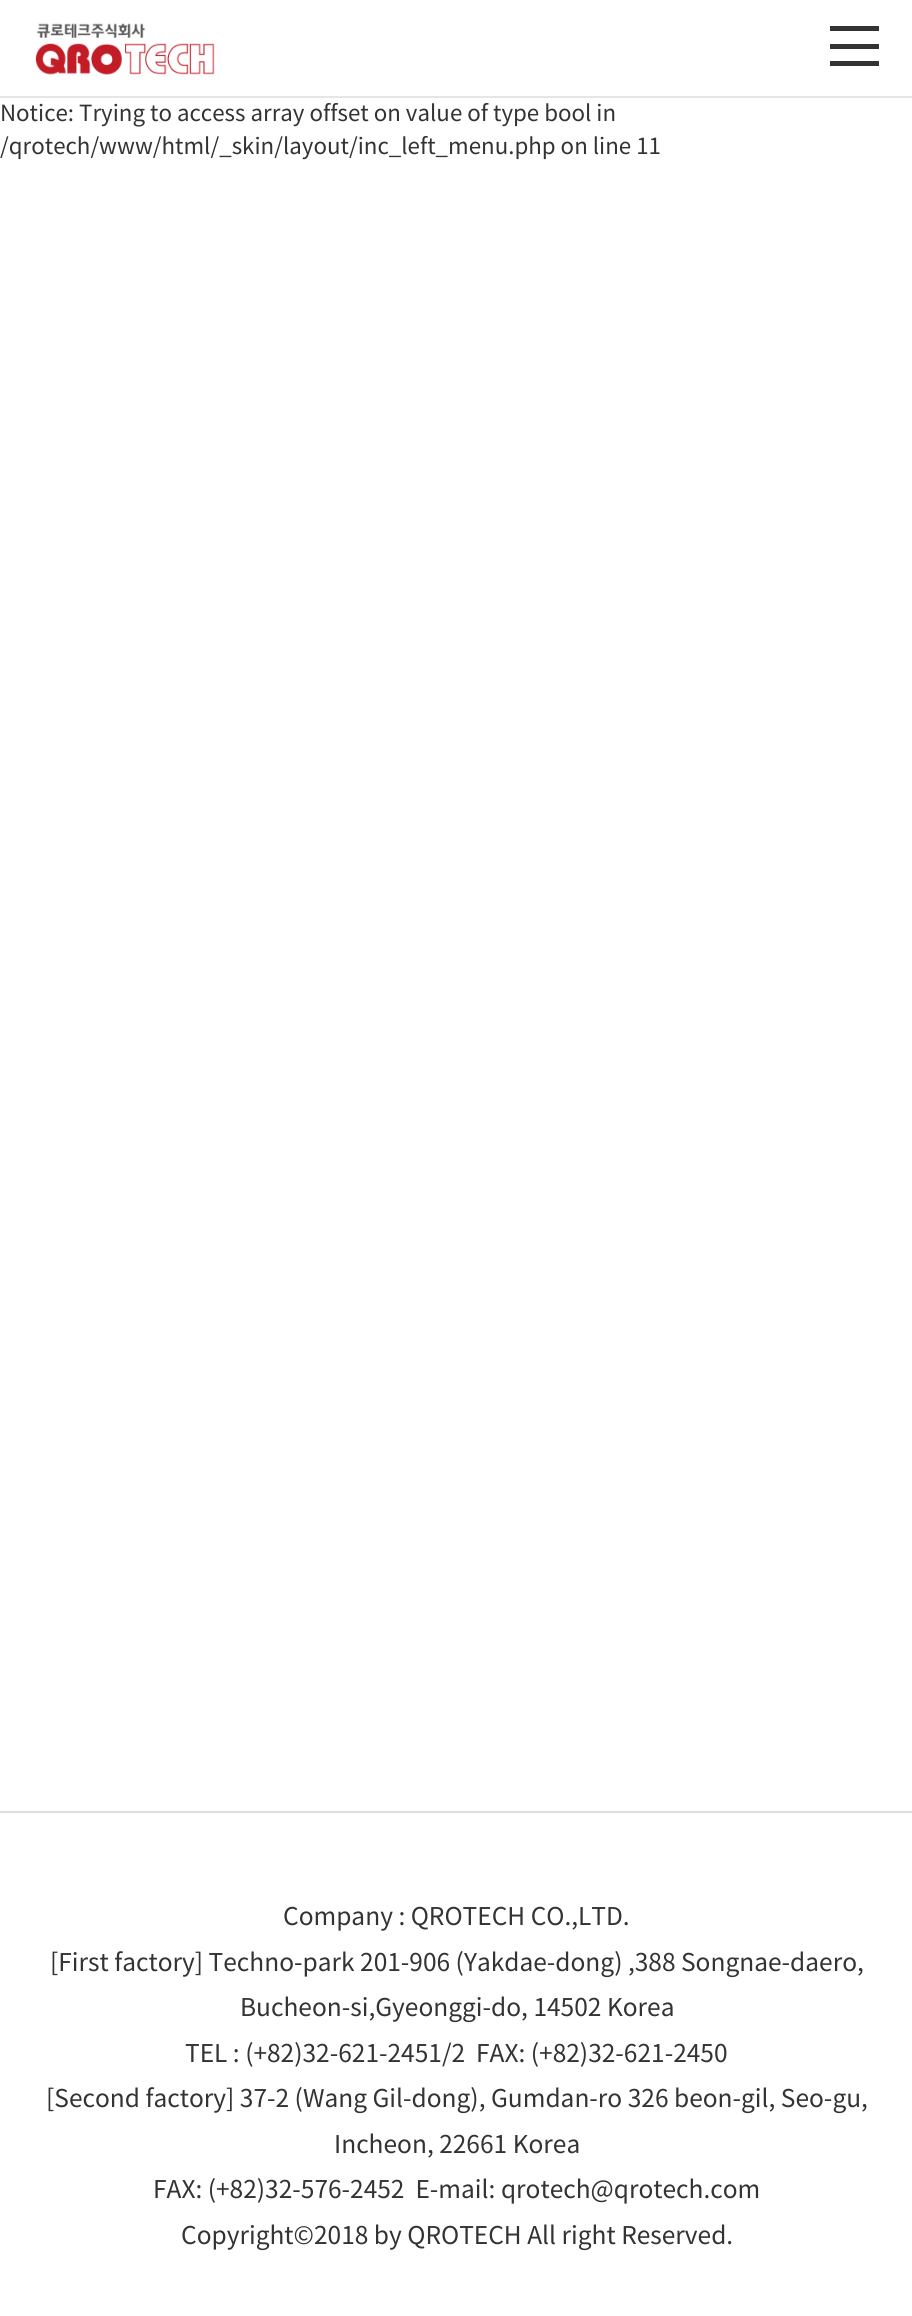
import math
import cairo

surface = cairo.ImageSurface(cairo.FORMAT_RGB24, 912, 2316)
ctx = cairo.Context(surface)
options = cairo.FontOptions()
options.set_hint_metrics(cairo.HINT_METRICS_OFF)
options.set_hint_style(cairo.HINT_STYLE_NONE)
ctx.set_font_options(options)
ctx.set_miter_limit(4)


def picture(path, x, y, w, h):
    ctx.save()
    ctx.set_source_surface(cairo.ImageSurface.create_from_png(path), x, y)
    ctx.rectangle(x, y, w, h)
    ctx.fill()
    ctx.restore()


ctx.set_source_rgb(1, 1, 1)
ctx.paint()
ctx.set_source_rgb(0.902, 0.902, 0.902)
ctx.rectangle(0, 96, 912, 2)
ctx.fill()
picture("img1.png", 35, 23, 180, 52)
ctx.set_source_rgb(0.2, 0.2, 0.2)
ctx.rectangle(830, 26, 49, 5)
ctx.fill()
ctx.rectangle(830, 44, 49, 5)
ctx.fill()
ctx.rectangle(830, 61, 49, 5)
ctx.fill()
ctx.select_font_face("Noto Sans KR")
ctx.set_font_size(22.3)
ctx.move_to(0, 121)
ctx.show_text("Notice: Trying to access array offset on value of type bool in")
ctx.move_to(0, 154)
ctx.show_text("/qrotech/www/html/_skin/layout/inc_left_menu.php on line 11")
ctx.set_source_rgb(0.871, 0.871, 0.871)
ctx.rectangle(0, 1811, 912, 2)
ctx.fill()
ctx.set_font_size(24.5)
ctx.set_source_rgb(0.2, 0.2, 0.2)
ctx.move_to(283, 1925)
ctx.show_text("Company : QROTECH CO.,LTD.")
ctx.move_to(50, 1971)
ctx.show_text("[First factory] Techno-park 201-906 (Yakdae-dong) ,388 Songnae-daero,")
ctx.move_to(240, 2016)
ctx.show_text("Bucheon-si,Gyeonggi-do, 14502 Korea")
ctx.move_to(185, 2062)
ctx.show_text("TEL : (+82)32-621-2451/2  FAX: (+82)32-621-2450")
ctx.move_to(46, 2107)
ctx.show_text("[Second factory] 37-2 (Wang Gil-dong), Gumdan-ro 326 beon-gil, Seo-gu,")
ctx.move_to(334, 2153)
ctx.show_text("Incheon, 22661 Korea")
ctx.move_to(153, 2198)
ctx.show_text("FAX: (+82)32-576-2452  E-mail: qrotech@qrotech.com")
ctx.move_to(181, 2244)
ctx.show_text("Copyright©2018 by QROTECH All right Reserved.")
surface.write_to_png("page.png")
